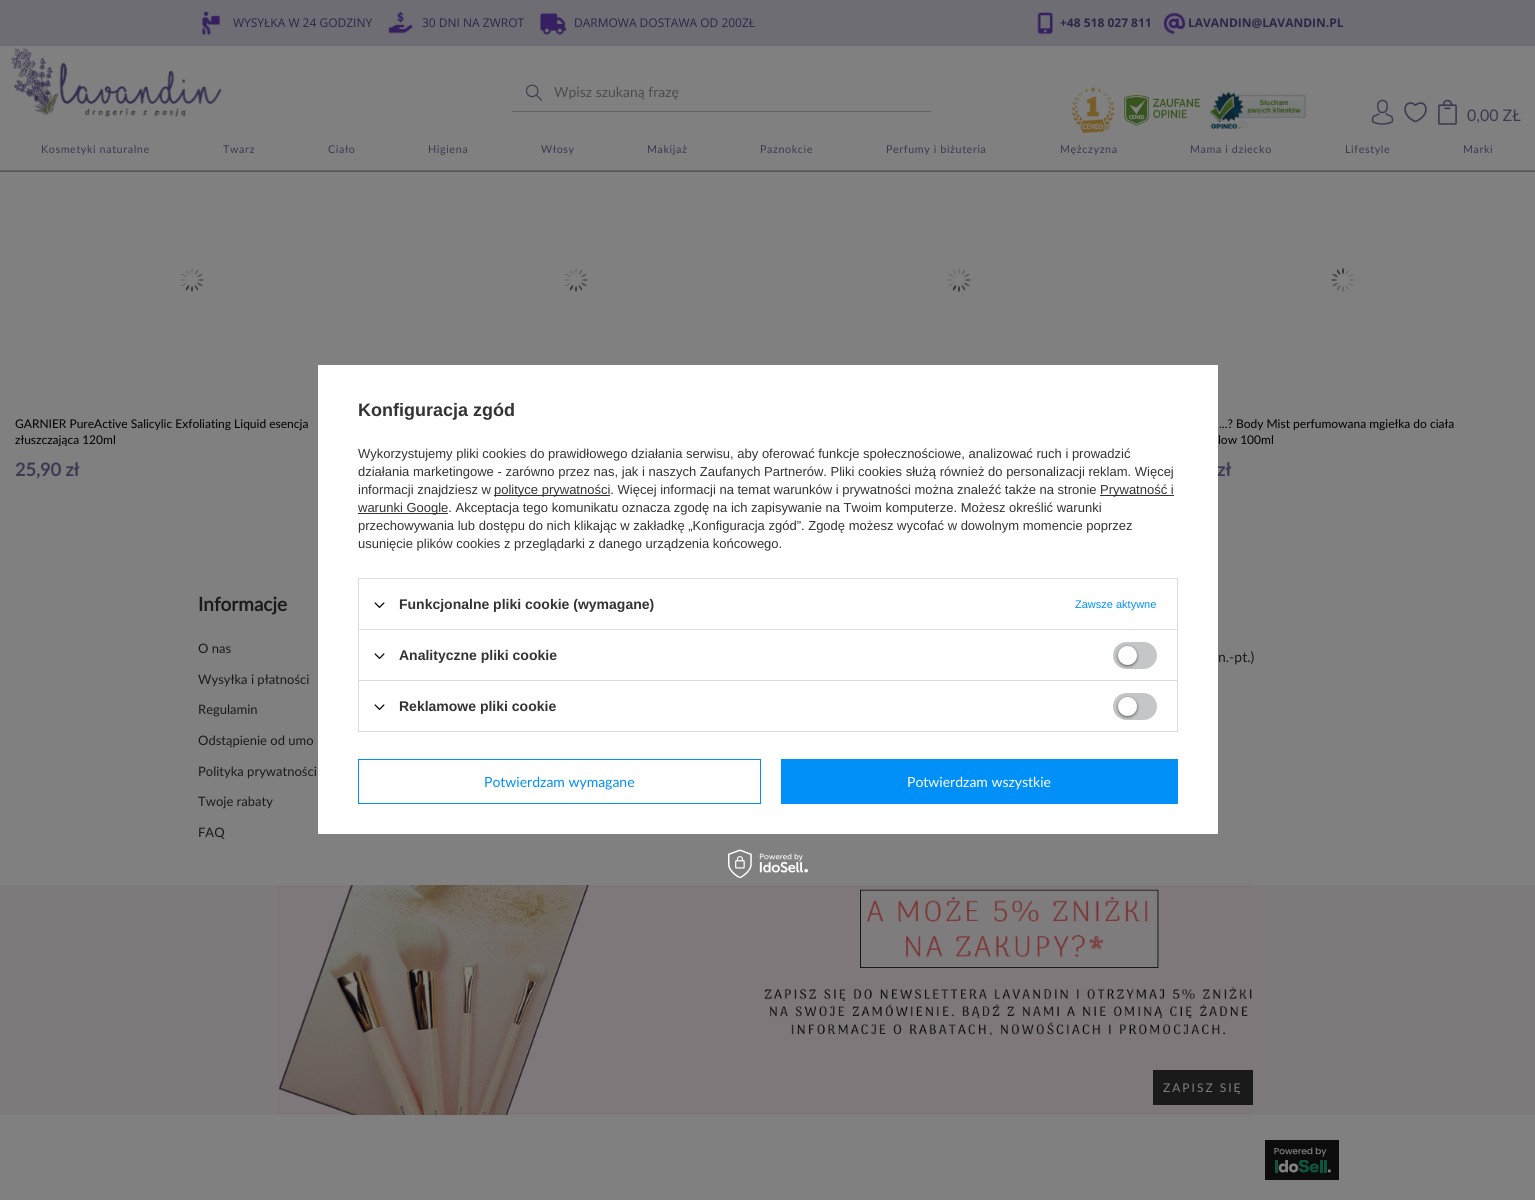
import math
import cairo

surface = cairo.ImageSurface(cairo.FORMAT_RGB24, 1535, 1200)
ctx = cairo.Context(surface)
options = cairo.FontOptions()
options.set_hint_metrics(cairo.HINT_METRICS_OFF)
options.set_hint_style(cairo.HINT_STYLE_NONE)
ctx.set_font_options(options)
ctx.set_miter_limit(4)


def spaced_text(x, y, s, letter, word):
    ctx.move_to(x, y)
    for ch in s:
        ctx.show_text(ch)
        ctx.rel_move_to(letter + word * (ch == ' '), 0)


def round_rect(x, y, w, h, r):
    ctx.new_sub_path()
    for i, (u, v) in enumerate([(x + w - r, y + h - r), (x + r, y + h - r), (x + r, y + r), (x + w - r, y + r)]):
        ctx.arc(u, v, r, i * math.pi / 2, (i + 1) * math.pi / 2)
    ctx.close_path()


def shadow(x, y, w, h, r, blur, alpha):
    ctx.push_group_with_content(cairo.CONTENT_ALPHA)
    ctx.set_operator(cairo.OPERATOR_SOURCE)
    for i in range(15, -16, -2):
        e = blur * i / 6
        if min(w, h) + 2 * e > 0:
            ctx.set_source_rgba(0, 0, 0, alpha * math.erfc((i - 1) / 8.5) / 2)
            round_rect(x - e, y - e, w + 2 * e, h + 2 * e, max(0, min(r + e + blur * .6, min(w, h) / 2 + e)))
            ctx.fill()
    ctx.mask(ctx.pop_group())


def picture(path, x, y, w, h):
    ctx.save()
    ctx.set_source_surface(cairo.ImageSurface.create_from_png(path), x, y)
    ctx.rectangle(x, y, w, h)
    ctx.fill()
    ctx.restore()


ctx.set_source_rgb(0.502, 0.502, 0.502)
ctx.paint()
ctx.set_source_rgb(0.435, 0.427, 0.455)
ctx.rectangle(0, 0, 1535, 46)
ctx.fill()
picture("img1.png", 201, 11, 20, 24)
ctx.select_font_face("Open Sans")
ctx.set_font_size(12)
ctx.set_source_rgb(0.18, 0.145, 0.282)
ctx.move_to(233, 27)
ctx.show_text("WYSYŁKA W 24 GODZINY")
picture("img2.png", 388, 11, 25, 23)
ctx.move_to(422, 27)
ctx.show_text("30 DNI NA ZWROT")
picture("img3.png", 540, 12, 27, 23)
ctx.move_to(574, 27)
ctx.show_text("DARMOWA DOSTAWA OD 200ZŁ")
picture("img4.png", 1037, 12, 16, 23)
ctx.select_font_face("Open Sans", cairo.FONT_SLANT_NORMAL, cairo.FONT_WEIGHT_BOLD)
ctx.move_to(1060, 27)
ctx.show_text("+48 518 027 811")
picture("img5.png", 1163, 12, 23, 22)
ctx.move_to(1188, 27)
ctx.show_text("LAVANDIN@LAVANDIN.PL")
ctx.set_source_rgb(0.337, 0.329, 0.329)
ctx.rectangle(0, 171, 1535, 1)
ctx.fill()
picture("img6.png", 11, 47, 211, 70)
picture("img7.png", 525, 84, 17, 17)
ctx.set_source_rgb(0.384, 0.392, 0.392)
ctx.rectangle(512, 111, 419, 1)
ctx.fill()
ctx.select_font_face("Lato")
ctx.set_font_size(14)
ctx.set_source_rgb(0.298, 0.298, 0.298)
ctx.move_to(554, 97)
ctx.show_text("Wpisz szukaną frazę")
picture("img8.png", 1071, 87, 44, 46)
picture("img9.png", 1124, 95, 76, 31)
picture("img10.png", 1209, 91, 97, 39)
picture("img11.png", 1371, 99, 23, 26)
picture("img12.png", 1404, 102, 23, 21)
picture("img13.png", 1438, 99, 19, 26)
ctx.set_font_size(16)
ctx.set_source_rgb(0.243, 0.216, 0.318)
ctx.move_to(1467, 121)
ctx.show_text("0,00 ZŁ")
ctx.set_source_rgb(0.384, 0.392, 0.392)
ctx.rectangle(0, 170, 1535, 1)
ctx.fill()
ctx.set_font_size(10.75)
ctx.set_source_rgb(0.243, 0.216, 0.318)
spaced_text(41, 153, "Kosmetyki naturalne", 0.6, 0)
spaced_text(223, 153, "Twarz", 0.6, 0)
spaced_text(328, 153, "Ciało", 0.6, 0)
spaced_text(428, 153, "Higiena", 0.6, 0)
spaced_text(541, 153, "Włosy", 0.6, 0)
spaced_text(647, 153, "Makijaż", 0.6, 0)
spaced_text(760, 153, "Paznokcie", 0.6, 0)
spaced_text(886, 153, "Perfumy i biżuteria", 0.6, 0)
spaced_text(1060, 153, "Mężczyzna", 0.6, 0)
spaced_text(1190, 153, "Mama i dziecko", 0.6, 0)
spaced_text(1345, 153, "Lifestyle", 0.6, 0)
spaced_text(1463, 153, "Marki", 0.6, 0)
picture("img14.png", 564, 268, 24, 24)
picture("img14.png", 947, 268, 24, 24)
picture("img14.png", 180, 268, 24, 24)
ctx.set_font_size(12)
ctx.set_source_rgb(0, 0, 0)
ctx.move_to(15, 428)
ctx.show_text("GARNIER PureActive Salicylic Exfoliating Liquid esencja")
ctx.move_to(15, 444)
ctx.show_text("złuszczająca 120ml")
ctx.select_font_face("Lato", cairo.FONT_SLANT_NORMAL, cairo.FONT_WEIGHT_BOLD)
ctx.set_font_size(18)
ctx.set_source_rgb(0.243, 0.216, 0.318)
ctx.move_to(15, 476)
ctx.show_text("25,90 zł")
picture("img15.png", 1331, 268, 24, 24)
ctx.select_font_face("Lato")
ctx.set_font_size(12)
ctx.set_source_rgb(0, 0, 0)
ctx.move_to(1219, 428)
ctx.show_text("...? Body Mist perfumowana mgiełka do ciała")
ctx.move_to(1218, 444)
ctx.show_text("low 100ml")
ctx.select_font_face("Lato", cairo.FONT_SLANT_NORMAL, cairo.FONT_WEIGHT_BOLD)
ctx.set_font_size(18)
ctx.set_source_rgb(0.243, 0.216, 0.318)
ctx.move_to(1217, 476)
ctx.show_text("zł")
ctx.set_source_rgb(1, 1, 1)
ctx.rectangle(318, 365, 900, 469)
ctx.fill()
ctx.select_font_face("Liberation Sans", cairo.FONT_SLANT_NORMAL, cairo.FONT_WEIGHT_BOLD)
ctx.set_source_rgb(0.2, 0.2, 0.2)
ctx.move_to(358, 416)
ctx.show_text("Konfiguracja zgód")
ctx.select_font_face("Liberation Sans")
ctx.set_font_size(13)
ctx.move_to(358, 458)
ctx.show_text("Wykorzystujemy pliki cookies do prawidłowego działania serwisu, aby oferować funkcje społecznościowe, analizować ruch i prowadzić")
ctx.move_to(358, 476)
ctx.show_text("działania marketingowe - zarówno przez nas, jak i naszych Zaufanych Partnerów. Pliki cookies służą również do personalizacji reklam. Więcej")
ctx.move_to(358, 494)
ctx.show_text("informacji znajdziesz w")
ctx.rectangle(494, 495, 116, 1)
ctx.fill()
ctx.move_to(494, 494)
ctx.show_text("polityce prywatności. Więcej informacji na temat warunków i prywatności można znaleźć także na stronie")
ctx.rectangle(1100, 495, 74, 1)
ctx.fill()
ctx.move_to(1100, 494)
ctx.show_text("Prywatność i")
ctx.rectangle(358, 513, 90, 1)
ctx.fill()
ctx.move_to(358, 512)
ctx.show_text("warunki Google. Akceptacja tego komunikatu oznacza zgodę na ich zapisywanie na Twoim komputerze. Możesz określić warunki")
ctx.move_to(358, 530)
ctx.show_text("przechowywania lub dostępu do nich klikając w zakładkę „Konfiguracja zgód”. Zgodę możesz wycofać w dowolnym momencie poprzez")
ctx.move_to(358, 548)
ctx.show_text("usunięcie plików cookies z przeglądarki z danego urządzenia końcowego.")
ctx.set_source_rgb(0.859, 0.859, 0.859)
ctx.rectangle(358, 578, 820, 1)
ctx.fill()
ctx.rectangle(1177, 578, 1, 51)
ctx.fill()
ctx.rectangle(358, 578, 1, 51)
ctx.fill()
picture("img16.png", 374, 602, 11, 6)
ctx.select_font_face("Liberation Sans", cairo.FONT_SLANT_NORMAL, cairo.FONT_WEIGHT_BOLD)
ctx.set_font_size(14)
ctx.set_source_rgb(0.2, 0.2, 0.2)
ctx.move_to(399, 609)
ctx.show_text("Funkcjonalne pliki cookie (wymagane)")
ctx.select_font_face("Liberation Sans")
ctx.set_font_size(11)
ctx.set_source_rgb(0, 0.565, 0.965)
ctx.move_to(1075, 608)
ctx.show_text("Zawsze aktywne")
ctx.set_source_rgb(0.859, 0.859, 0.859)
ctx.rectangle(358, 629, 820, 1)
ctx.fill()
ctx.rectangle(1177, 629, 1, 51)
ctx.fill()
ctx.rectangle(358, 629, 1, 51)
ctx.fill()
picture("img16.png", 374, 653, 11, 6)
ctx.select_font_face("Liberation Sans", cairo.FONT_SLANT_NORMAL, cairo.FONT_WEIGHT_BOLD)
ctx.set_font_size(14)
ctx.set_source_rgb(0.2, 0.2, 0.2)
ctx.move_to(399, 660)
ctx.show_text("Analityczne pliki cookie")
ctx.set_source_rgb(0.769, 0.78, 0.784)
round_rect(1113, 642, 44, 27, 13.5)
ctx.fill()
ctx.set_source_rgb(0, 0, 0)
shadow(1118, 647, 19, 19, 9.5, 1.5, 0.56)
ctx.set_source_rgb(1, 1, 1)
ctx.arc(1127.5, 655.5, 9.5, 0, 2 * math.pi)
ctx.fill()
ctx.rectangle(358.5, 680.5, 819, 51)
ctx.set_source_rgb(0.859, 0.859, 0.859)
ctx.set_line_width(1)
ctx.stroke()
picture("img16.png", 374, 704, 11, 6)
ctx.set_source_rgb(0.2, 0.2, 0.2)
ctx.move_to(399, 711)
ctx.show_text("Reklamowe pliki cookie")
ctx.set_source_rgb(0.769, 0.78, 0.784)
round_rect(1113, 693, 44, 27, 13.5)
ctx.fill()
ctx.set_source_rgb(0, 0, 0)
shadow(1118, 698, 19, 19, 9.5, 1.5, 0.56)
ctx.set_source_rgb(1, 1, 1)
ctx.arc(1127.5, 706.5, 9.5, 0, 2 * math.pi)
ctx.fill()
ctx.rectangle(358.5, 759.5, 402, 44)
ctx.set_source_rgb(0, 0.565, 0.965)
ctx.stroke()
ctx.select_font_face("Lato")
ctx.move_to(484, 787)
ctx.show_text("Potwierdzam wymagane")
ctx.rectangle(781, 759, 397, 45)
ctx.fill()
ctx.set_source_rgb(1, 1, 1)
ctx.move_to(907, 787)
ctx.show_text("Potwierdzam wszystkie")
picture("img17.png", 728, 849, 80, 29)
ctx.select_font_face("Lato", cairo.FONT_SLANT_NORMAL, cairo.FONT_WEIGHT_BOLD)
ctx.set_font_size(19)
ctx.set_source_rgb(0.102, 0.102, 0.102)
ctx.move_to(198, 611)
ctx.show_text("Informacje")
ctx.select_font_face("Lato")
ctx.set_font_size(13)
ctx.move_to(198, 653)
ctx.show_text("O nas")
ctx.move_to(198, 684)
ctx.show_text("Wysyłka i płatności")
ctx.move_to(198, 714)
ctx.show_text("Regulamin")
ctx.move_to(198, 745)
ctx.show_text("Odstąpienie od umo")
ctx.move_to(198, 776)
ctx.show_text("Polityka prywatności")
ctx.move_to(198, 806)
ctx.show_text("Twoje rabaty")
ctx.move_to(198, 837)
ctx.show_text("FAQ")
ctx.set_font_size(14)
ctx.move_to(1218, 662)
ctx.show_text("n.-pt.)")
ctx.set_source_rgb(0.494, 0.475, 0.482)
ctx.rectangle(0, 885, 1535, 230)
ctx.fill()
picture("img18.png", 278, 885, 974, 230)
ctx.set_source_rgb(0.102, 0.102, 0.102)
ctx.rectangle(1153, 1070, 100, 35)
ctx.fill()
ctx.set_font_size(12)
ctx.set_source_rgb(0.502, 0.502, 0.502)
spaced_text(1163, 1092, "ZAPISZ SIĘ", 2, 0)
picture("img19.png", 1265, 1140, 74, 40)
surface.write_to_png("page.png")
